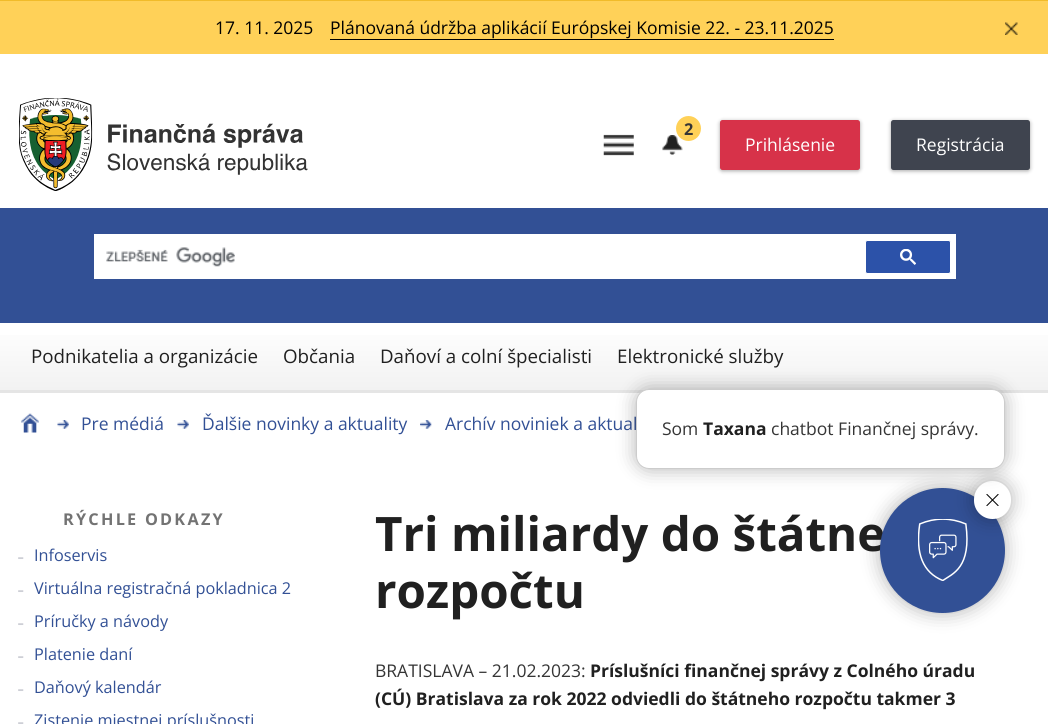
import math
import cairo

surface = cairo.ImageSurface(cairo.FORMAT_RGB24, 1048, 724)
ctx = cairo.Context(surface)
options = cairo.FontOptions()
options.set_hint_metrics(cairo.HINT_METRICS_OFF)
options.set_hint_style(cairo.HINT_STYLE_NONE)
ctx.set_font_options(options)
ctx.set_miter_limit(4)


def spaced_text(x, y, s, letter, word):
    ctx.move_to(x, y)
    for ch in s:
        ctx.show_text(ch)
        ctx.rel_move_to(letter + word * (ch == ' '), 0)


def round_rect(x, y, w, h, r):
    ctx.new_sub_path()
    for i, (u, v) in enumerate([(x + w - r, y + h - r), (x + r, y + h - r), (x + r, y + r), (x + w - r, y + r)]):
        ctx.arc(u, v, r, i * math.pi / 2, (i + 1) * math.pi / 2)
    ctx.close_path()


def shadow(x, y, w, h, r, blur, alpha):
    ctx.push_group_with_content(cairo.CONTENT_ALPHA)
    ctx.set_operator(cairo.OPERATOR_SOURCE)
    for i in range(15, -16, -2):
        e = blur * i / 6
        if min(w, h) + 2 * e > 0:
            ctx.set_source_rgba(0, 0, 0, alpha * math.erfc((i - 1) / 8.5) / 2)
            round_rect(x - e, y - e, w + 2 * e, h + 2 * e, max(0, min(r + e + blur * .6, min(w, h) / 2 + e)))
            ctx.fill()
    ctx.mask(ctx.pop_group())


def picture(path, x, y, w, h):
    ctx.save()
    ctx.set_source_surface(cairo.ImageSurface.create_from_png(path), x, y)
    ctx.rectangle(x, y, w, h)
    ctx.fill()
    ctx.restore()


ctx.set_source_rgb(1, 1, 1)
ctx.paint()
ctx.set_source_rgb(1, 0.82, 0.345)
ctx.rectangle(0, 1, 1048, 53)
ctx.fill()
ctx.set_source_rgb(0.945, 0.733, 0.165)
ctx.rectangle(0, 0, 1048, 1)
ctx.fill()
ctx.select_font_face("Open Sans")
ctx.set_font_size(17.5)
ctx.set_source_rgb(0, 0, 0)
ctx.move_to(215, 34)
ctx.show_text("17. 11. 2025")
ctx.move_to(330, 34)
ctx.show_text("Plánovaná údržba aplikácií Európskej Komisie 22. - 23.11.2025")
ctx.rectangle(330, 39, 504, 1)
ctx.fill()
picture("img1.png", 1005, 22, 13, 13)
picture("img2.png", 19, 98, 289, 93)
picture("img3.png", 662, 135, 21, 20)
ctx.set_source_rgb(1, 0.82, 0.345)
ctx.arc(688.5, 128.5, 12.5, 0, 2 * math.pi)
ctx.fill()
ctx.select_font_face("Open Sans", cairo.FONT_SLANT_NORMAL, cairo.FONT_WEIGHT_BOLD)
ctx.set_font_size(16.25)
ctx.set_source_rgb(0.208, 0.208, 0.208)
ctx.move_to(684, 135)
ctx.show_text("2")
picture("img4.png", 603, 134, 31, 22)
ctx.set_source_rgb(0, 0, 0)
shadow(720, 121, 140, 50, 2.5, 2, 0.35)
ctx.set_source_rgb(0.843, 0.196, 0.286)
round_rect(720, 120, 140, 50, 2.5)
ctx.fill()
ctx.select_font_face("Open Sans")
ctx.set_font_size(17.5)
ctx.set_source_rgb(1, 1, 1)
ctx.move_to(745, 151)
ctx.show_text("Prihlásenie")
ctx.set_source_rgb(0, 0, 0)
shadow(891, 121, 139, 50, 2.5, 2, 0.35)
ctx.set_source_rgb(0.247, 0.267, 0.31)
round_rect(891, 120, 139, 50, 2.5)
ctx.fill()
ctx.set_source_rgb(1, 1, 1)
ctx.move_to(916, 151)
ctx.show_text("Registrácia")
ctx.set_source_rgb(0.196, 0.314, 0.584)
ctx.rectangle(0, 208, 1048, 115)
ctx.fill()
ctx.set_source_rgb(1, 1, 1)
ctx.rectangle(94, 234, 862, 45)
ctx.fill()
picture("img5.png", 106, 247, 129, 20)
ctx.set_source_rgb(0.173, 0.322, 0.663)
round_rect(865.5, 240.5, 85, 33, 2)
ctx.fill_preserve()
ctx.set_source_rgb(1, 1, 1)
ctx.set_line_width(1)
ctx.stroke()
picture("img6.png", 900, 249, 16, 16)
gradient = cairo.LinearGradient(524, 322, 524, 390)
gradient.add_color_stop_rgba(0, 1, 1, 1, 1)
gradient.add_color_stop_rgba(1, 0.949, 0.949, 0.949, 1)
ctx.set_source(gradient)
ctx.rectangle(0, 335, 1048, 55)
ctx.fill()
ctx.set_source_rgb(0.898, 0.898, 0.898)
ctx.rectangle(0, 390, 1048, 3)
ctx.fill()
ctx.set_font_size(18.75)
ctx.set_source_rgb(0.125, 0.125, 0.125)
ctx.move_to(31, 363)
ctx.show_text("Podnikatelia a organizácie")
ctx.move_to(283, 363)
ctx.show_text("Občania")
ctx.move_to(380, 363)
ctx.show_text("Daňoví a colní špecialisti")
ctx.move_to(617, 363)
ctx.show_text("Elektronické služby")
picture("img7.png", 21, 413, 18, 20)
picture("img8.png", 57, 420, 12, 9)
ctx.set_font_size(17.5)
ctx.set_source_rgb(0.196, 0.314, 0.584)
ctx.move_to(81, 430)
ctx.show_text("Pre médiá")
picture("img9.png", 177, 420, 12, 9)
ctx.move_to(202, 430)
ctx.show_text("Ďalšie novinky a aktuality")
picture("img10.png", 420, 420, 12, 9)
ctx.move_to(445, 430)
ctx.show_text("Archív noviniek a aktual")
ctx.set_source_rgb(0, 0, 0)
shadow(880, 488, 125, 125, 62.5, 9.5, 0.3)
ctx.select_font_face("Open Sans", cairo.FONT_SLANT_NORMAL, cairo.FONT_WEIGHT_BOLD)
ctx.set_font_size(47.5)
ctx.set_source_rgb(0.125, 0.125, 0.125)
ctx.move_to(375, 551)
ctx.show_text("Tri miliardy do štátne")
ctx.set_source_rgb(0.196, 0.314, 0.584)
ctx.new_path()
ctx.arc(942.5, 550.5, 62.5, 0, 2 * math.pi)
ctx.fill()
picture("img11.png", 918, 519, 50, 62)
ctx.set_source_rgb(0, 0, 0)
shadow(974, 481, 37, 38, 18.5, 9.5, 0.3)
ctx.set_source_rgb(1, 1, 1)
round_rect(974, 481, 37, 38, 18.5)
ctx.fill()
picture("img12.png", 986, 494, 13, 12)
ctx.set_source_rgb(0, 0, 0)
shadow(636, 389, 369, 80, 13, 9.5, 0.3)
ctx.set_source_rgb(1, 1, 1)
round_rect(636.5, 389.5, 368, 79, 12.5)
ctx.fill_preserve()
ctx.set_source_rgb(0.8, 0.8, 0.8)
ctx.stroke()
ctx.select_font_face("Open Sans")
ctx.set_font_size(17.5)
ctx.set_source_rgb(0.208, 0.208, 0.208)
ctx.move_to(662, 435)
ctx.show_text("Som")
ctx.select_font_face("Open Sans", cairo.FONT_SLANT_NORMAL, cairo.FONT_WEIGHT_BOLD)
ctx.set_source_rgb(0.125, 0.125, 0.125)
ctx.move_to(703, 435)
ctx.show_text("Taxana")
ctx.select_font_face("Open Sans")
ctx.set_source_rgb(0.208, 0.208, 0.208)
ctx.move_to(771, 435)
ctx.show_text("chatbot Finančnej správy.")
ctx.select_font_face("Open Sans", cairo.FONT_SLANT_NORMAL, cairo.FONT_WEIGHT_BOLD)
ctx.set_font_size(16.25)
ctx.set_source_rgb(0.451, 0.451, 0.451)
spaced_text(63, 525, "RÝCHLE ODKAZY", 2.25, 0)
ctx.select_font_face("Liberation Sans", cairo.FONT_SLANT_NORMAL, cairo.FONT_WEIGHT_BOLD)
ctx.set_source_rgb(0.804, 0.812, 0.839)
ctx.move_to(18, 561)
ctx.show_text("˗")
ctx.select_font_face("Open Sans")
ctx.set_source_rgb(0.196, 0.314, 0.584)
ctx.move_to(34, 561)
ctx.show_text("Infoservis")
ctx.select_font_face("Liberation Sans", cairo.FONT_SLANT_NORMAL, cairo.FONT_WEIGHT_BOLD)
ctx.set_source_rgb(0.804, 0.812, 0.839)
ctx.move_to(18, 594)
ctx.show_text("˗")
ctx.select_font_face("Open Sans")
ctx.set_source_rgb(0.196, 0.314, 0.584)
ctx.move_to(34, 594)
ctx.show_text("Virtuálna registračná pokladnica 2")
ctx.select_font_face("Liberation Sans", cairo.FONT_SLANT_NORMAL, cairo.FONT_WEIGHT_BOLD)
ctx.set_source_rgb(0.804, 0.812, 0.839)
ctx.move_to(18, 627)
ctx.show_text("˗")
ctx.select_font_face("Open Sans")
ctx.set_source_rgb(0.196, 0.314, 0.584)
ctx.move_to(34, 627)
ctx.show_text("Príručky a návody")
ctx.select_font_face("Liberation Sans", cairo.FONT_SLANT_NORMAL, cairo.FONT_WEIGHT_BOLD)
ctx.set_source_rgb(0.804, 0.812, 0.839)
ctx.move_to(18, 660)
ctx.show_text("˗")
ctx.select_font_face("Open Sans")
ctx.set_source_rgb(0.196, 0.314, 0.584)
ctx.move_to(34, 660)
ctx.show_text("Platenie daní")
ctx.select_font_face("Liberation Sans", cairo.FONT_SLANT_NORMAL, cairo.FONT_WEIGHT_BOLD)
ctx.set_source_rgb(0.804, 0.812, 0.839)
ctx.move_to(18, 693)
ctx.show_text("˗")
ctx.select_font_face("Open Sans")
ctx.set_source_rgb(0.196, 0.314, 0.584)
ctx.move_to(34, 693)
ctx.show_text("Daňový kalendár")
ctx.select_font_face("Liberation Sans", cairo.FONT_SLANT_NORMAL, cairo.FONT_WEIGHT_BOLD)
ctx.set_source_rgb(0.804, 0.812, 0.839)
ctx.move_to(18, 726)
ctx.show_text("˗")
ctx.select_font_face("Open Sans")
ctx.set_source_rgb(0.196, 0.314, 0.584)
ctx.move_to(34, 726)
ctx.show_text("Zistenie miestnej príslušnosti")
ctx.select_font_face("Open Sans", cairo.FONT_SLANT_NORMAL, cairo.FONT_WEIGHT_BOLD)
ctx.set_font_size(47.5)
ctx.set_source_rgb(0.125, 0.125, 0.125)
ctx.move_to(375, 608)
ctx.show_text("rozpočtu")
ctx.select_font_face("Open Sans")
ctx.set_font_size(17.5)
ctx.set_source_rgb(0.208, 0.208, 0.208)
ctx.move_to(375, 677)
ctx.show_text("BRATISLAVA – 21.02.2023:")
ctx.select_font_face("Open Sans", cairo.FONT_SLANT_NORMAL, cairo.FONT_WEIGHT_BOLD)
ctx.set_source_rgb(0.125, 0.125, 0.125)
ctx.move_to(590, 677)
ctx.show_text("Príslušníci finančnej správy z Colného úradu")
ctx.move_to(375, 705)
ctx.show_text("(CÚ) Bratislava za rok 2022 odviedli do štátneho rozpočtu takmer 3")
surface.write_to_png("page.png")
